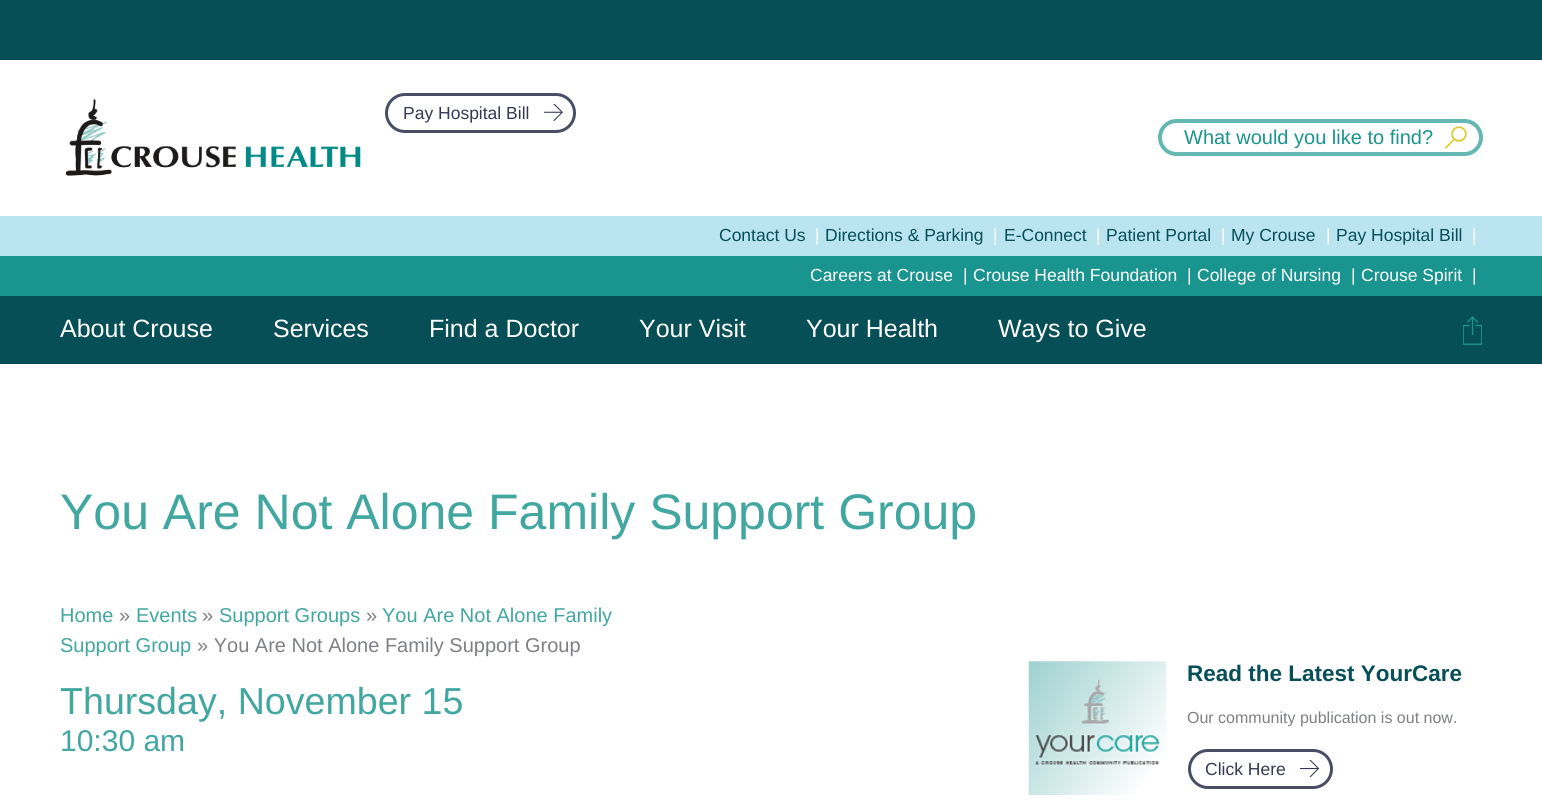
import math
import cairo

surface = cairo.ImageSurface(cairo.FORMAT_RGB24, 1542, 803)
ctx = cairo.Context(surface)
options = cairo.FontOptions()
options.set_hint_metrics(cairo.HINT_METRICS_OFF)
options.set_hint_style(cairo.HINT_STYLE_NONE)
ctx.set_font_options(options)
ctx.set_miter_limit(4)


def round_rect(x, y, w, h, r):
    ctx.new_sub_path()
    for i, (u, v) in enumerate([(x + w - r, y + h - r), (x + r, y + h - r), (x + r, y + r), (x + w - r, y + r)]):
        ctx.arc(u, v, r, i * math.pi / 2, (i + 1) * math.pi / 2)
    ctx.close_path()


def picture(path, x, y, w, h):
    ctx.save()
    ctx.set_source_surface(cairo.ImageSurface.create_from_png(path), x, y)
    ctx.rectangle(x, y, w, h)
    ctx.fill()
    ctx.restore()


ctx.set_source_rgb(0.027, 0.31, 0.341)
ctx.paint()
ctx.set_source_rgb(1, 1, 1)
ctx.rectangle(0, 60, 1542, 743)
ctx.fill()
picture("img1.png", 65, 99, 296, 77)
round_rect(386.5, 94.5, 188, 37, 18.5)
ctx.set_source_rgb(0.29, 0.302, 0.4)
ctx.set_line_width(3)
ctx.stroke()
ctx.select_font_face("Liberation Sans")
ctx.set_font_size(17.5)
ctx.set_source_rgb(0.212, 0.224, 0.333)
ctx.move_to(403, 119)
ctx.show_text("Pay Hospital Bill")
picture("img2.png", 544, 104, 19, 17)
round_rect(1160, 121, 321, 33, 16.5)
ctx.set_source_rgb(0.392, 0.718, 0.702)
ctx.set_line_width(4)
ctx.stroke()
ctx.set_font_size(20)
ctx.set_source_rgb(0.098, 0.58, 0.557)
ctx.move_to(1184, 144)
ctx.show_text("What would you like to find?")
picture("img3.png", 1445, 126, 22, 23)
ctx.set_source_rgb(0.729, 0.894, 0.937)
ctx.rectangle(0, 216, 1542, 40)
ctx.fill()
ctx.set_font_size(17.5)
ctx.set_source_rgb(0.027, 0.31, 0.341)
ctx.move_to(719, 241)
ctx.show_text("Contact Us")
ctx.set_source_rgb(1, 1, 1)
ctx.move_to(815, 241)
ctx.show_text("|")
ctx.set_source_rgb(0.027, 0.31, 0.341)
ctx.move_to(825, 241)
ctx.show_text("Directions & Parking")
ctx.set_source_rgb(1, 1, 1)
ctx.move_to(993, 241)
ctx.show_text("|")
ctx.set_source_rgb(0.027, 0.31, 0.341)
ctx.move_to(1004, 241)
ctx.show_text("E-Connect")
ctx.set_source_rgb(1, 1, 1)
ctx.move_to(1096, 241)
ctx.show_text("|")
ctx.set_source_rgb(0.027, 0.31, 0.341)
ctx.move_to(1106, 241)
ctx.show_text("Patient Portal")
ctx.set_source_rgb(1, 1, 1)
ctx.move_to(1221, 241)
ctx.show_text("|")
ctx.set_source_rgb(0.027, 0.31, 0.341)
ctx.move_to(1231, 241)
ctx.show_text("My Crouse")
ctx.set_source_rgb(1, 1, 1)
ctx.move_to(1326, 241)
ctx.show_text("|")
ctx.set_source_rgb(0.027, 0.31, 0.341)
ctx.move_to(1336, 241)
ctx.show_text("Pay Hospital Bill")
ctx.set_source_rgb(1, 1, 1)
ctx.move_to(1472, 241)
ctx.show_text("|")
ctx.set_source_rgb(0.098, 0.58, 0.557)
ctx.rectangle(0, 256, 1542, 40)
ctx.fill()
ctx.set_source_rgb(1, 1, 1)
ctx.move_to(810, 281)
ctx.show_text("Careers at Crouse")
ctx.move_to(963, 281)
ctx.show_text("|")
ctx.move_to(973, 281)
ctx.show_text("Crouse Health Foundation")
ctx.move_to(1187, 281)
ctx.show_text("|")
ctx.move_to(1197, 281)
ctx.show_text("College of Nursing")
ctx.move_to(1351, 281)
ctx.show_text("|")
ctx.move_to(1361, 281)
ctx.show_text("Crouse Spirit")
ctx.move_to(1472, 281)
ctx.show_text("|")
ctx.set_source_rgb(0.027, 0.31, 0.341)
ctx.rectangle(0, 296, 1542, 68)
ctx.fill()
ctx.set_font_size(25)
ctx.set_source_rgb(1, 1, 1)
ctx.move_to(60, 337)
ctx.show_text("About Crouse")
ctx.move_to(273, 337)
ctx.show_text("Services")
ctx.move_to(429, 337)
ctx.show_text("Find a Doctor")
ctx.move_to(639, 337)
ctx.show_text("Your Visit")
ctx.move_to(806, 337)
ctx.show_text("Your Health")
ctx.move_to(998, 337)
ctx.show_text("Ways to Give")
picture("img4.png", 1463, 316, 19, 29)
ctx.set_font_size(50)
ctx.set_source_rgb(0.259, 0.655, 0.631)
ctx.move_to(60, 529)
ctx.show_text("You Are Not Alone Family Support Group")
ctx.set_font_size(20)
ctx.move_to(60, 622)
ctx.show_text("Home")
ctx.set_source_rgb(0.494, 0.502, 0.514)
ctx.move_to(119, 622)
ctx.show_text("»")
ctx.set_source_rgb(0.259, 0.655, 0.631)
ctx.move_to(136, 622)
ctx.show_text("Events")
ctx.set_source_rgb(0.494, 0.502, 0.514)
ctx.move_to(202, 622)
ctx.show_text("»")
ctx.set_source_rgb(0.259, 0.655, 0.631)
ctx.move_to(219, 622)
ctx.show_text("Support Groups")
ctx.set_source_rgb(0.494, 0.502, 0.514)
ctx.move_to(366, 622)
ctx.show_text("»")
ctx.set_source_rgb(0.259, 0.655, 0.631)
ctx.move_to(382, 622)
ctx.show_text("You Are Not Alone Family")
ctx.move_to(60, 652)
ctx.show_text("Support Group")
ctx.set_source_rgb(0.494, 0.502, 0.514)
ctx.move_to(197, 652)
ctx.show_text("» You Are Not Alone Family Support Group")
ctx.set_font_size(37.6)
ctx.set_source_rgb(0.259, 0.655, 0.631)
ctx.move_to(60, 714)
ctx.show_text("Thursday, November 15")
ctx.set_font_size(30)
ctx.move_to(60, 751)
ctx.show_text("10:30 am")
picture("img5.png", 1028, 661, 139, 134)
ctx.select_font_face("Liberation Sans", cairo.FONT_SLANT_NORMAL, cairo.FONT_WEIGHT_BOLD)
ctx.set_font_size(22.5)
ctx.set_source_rgb(0.027, 0.31, 0.341)
ctx.move_to(1187, 681)
ctx.show_text("Read the Latest YourCare")
ctx.select_font_face("Liberation Sans")
ctx.set_font_size(16)
ctx.set_source_rgb(0.494, 0.502, 0.514)
ctx.move_to(1187, 723)
ctx.show_text("Our community publication is out now.")
round_rect(1189.5, 750.5, 142, 37, 18.5)
ctx.set_source_rgb(0.29, 0.302, 0.4)
ctx.set_line_width(3)
ctx.stroke()
ctx.set_font_size(17.5)
ctx.set_source_rgb(0.212, 0.224, 0.333)
ctx.move_to(1205, 775)
ctx.show_text("Click Here")
picture("img6.png", 1300, 760, 20, 18)
surface.write_to_png("page.png")
